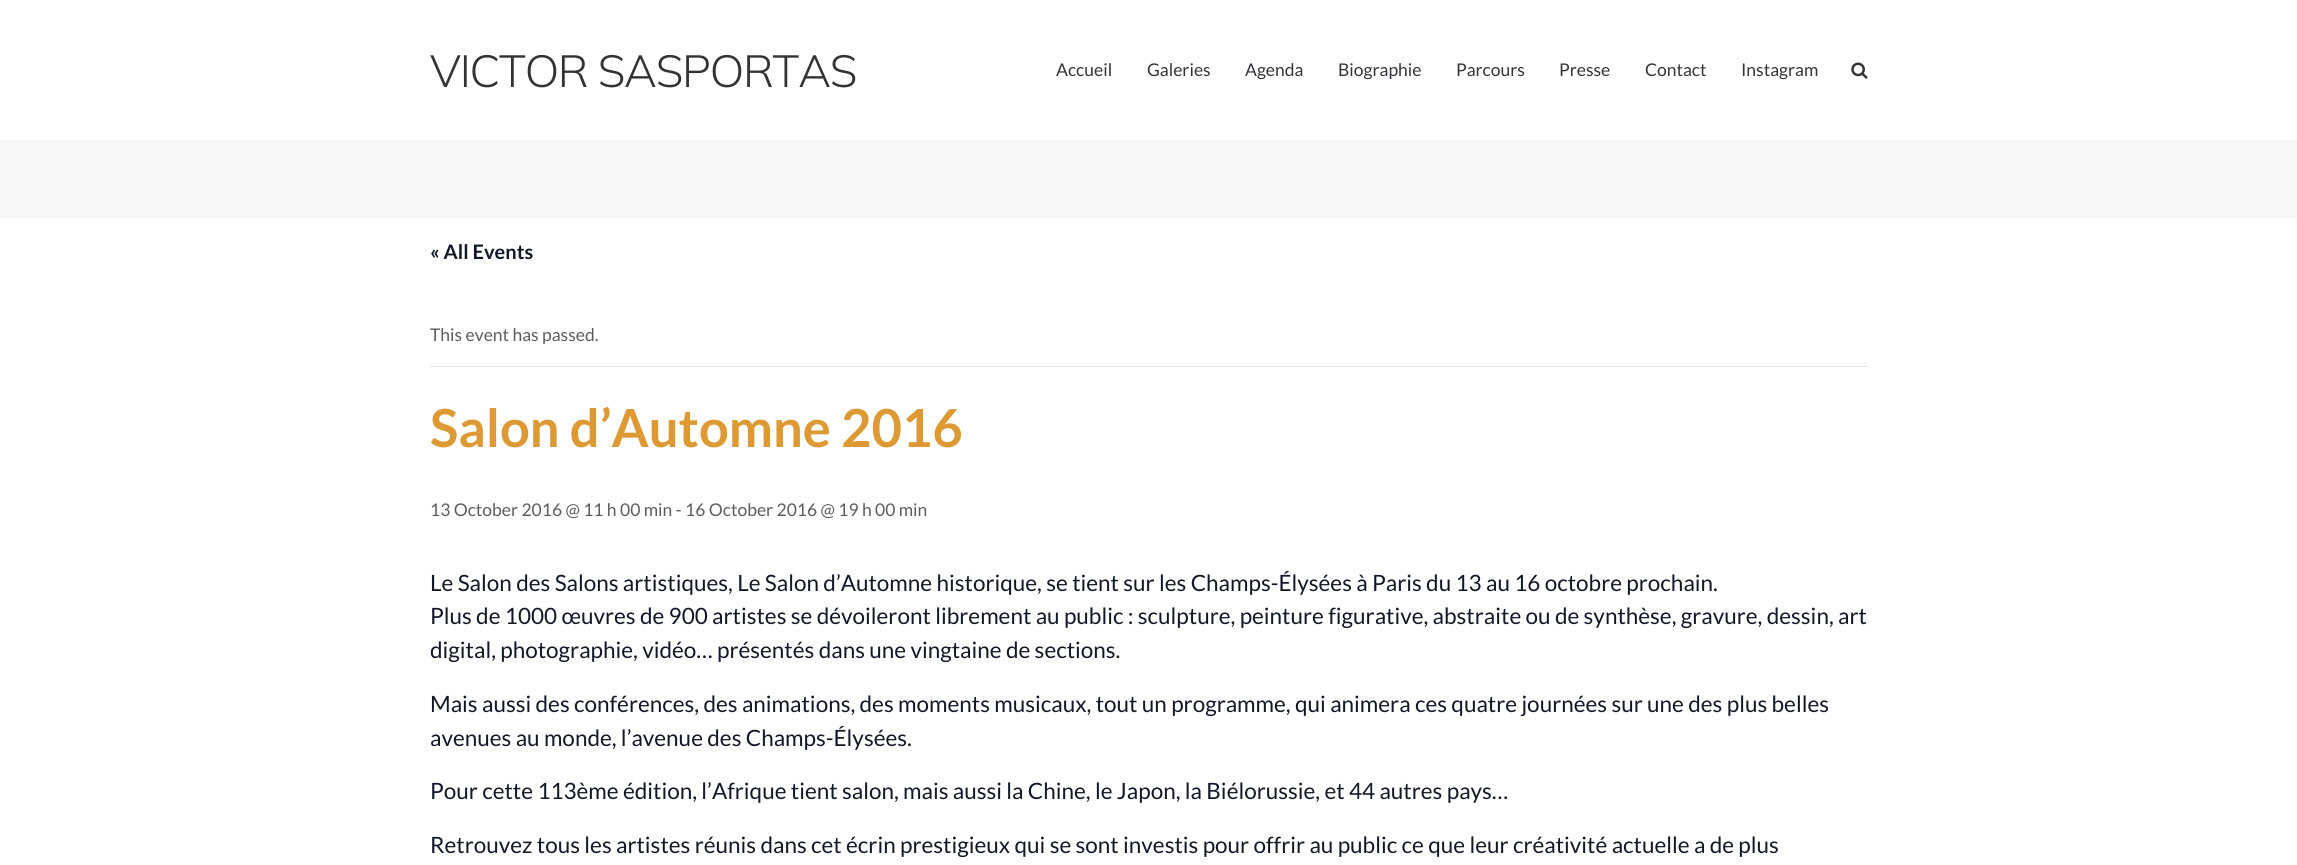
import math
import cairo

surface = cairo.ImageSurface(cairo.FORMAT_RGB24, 2297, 865)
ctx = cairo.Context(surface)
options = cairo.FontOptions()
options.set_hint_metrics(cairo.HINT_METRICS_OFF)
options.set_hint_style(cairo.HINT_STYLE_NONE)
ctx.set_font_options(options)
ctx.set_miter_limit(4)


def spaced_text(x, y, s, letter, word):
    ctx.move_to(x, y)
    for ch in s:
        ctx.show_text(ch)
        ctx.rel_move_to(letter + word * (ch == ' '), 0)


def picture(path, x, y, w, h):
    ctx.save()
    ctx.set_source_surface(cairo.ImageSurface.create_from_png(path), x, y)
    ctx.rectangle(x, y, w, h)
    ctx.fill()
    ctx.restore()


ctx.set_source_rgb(1, 1, 1)
ctx.paint()
ctx.select_font_face("Mulish ExtraLight")
ctx.set_font_size(45)
ctx.set_source_rgb(0.2, 0.2, 0.2)
spaced_text(430, 87, "VICTOR SASPORTAS", -1.25, 0)
ctx.select_font_face("Lato")
ctx.set_font_size(17.5)
ctx.set_source_rgb(0.192, 0.208, 0.224)
ctx.move_to(1056, 76)
ctx.show_text("Accueil")
ctx.move_to(1147, 76)
ctx.show_text("Galeries")
ctx.move_to(1245, 76)
ctx.show_text("Agenda")
ctx.move_to(1338, 76)
ctx.show_text("Biographie")
ctx.move_to(1456, 76)
ctx.show_text("Parcours")
ctx.move_to(1559, 76)
ctx.show_text("Presse")
ctx.move_to(1645, 76)
ctx.show_text("Contact")
ctx.move_to(1741, 76)
ctx.show_text("Instagram")
picture("img1.png", 1851, 62, 17, 17)
ctx.set_source_rgb(0.965, 0.965, 0.969)
ctx.rectangle(0, 140, 2297, 78)
ctx.fill()
ctx.select_font_face("Lato", cairo.FONT_SLANT_NORMAL, cairo.FONT_WEIGHT_BOLD)
ctx.set_font_size(20)
ctx.set_source_rgb(0.078, 0.094, 0.153)
ctx.move_to(430, 259)
ctx.show_text("« All Events")
ctx.set_source_rgb(0.894, 0.894, 0.894)
ctx.rectangle(430, 366, 1438, 1)
ctx.fill()
ctx.select_font_face("Lato")
ctx.set_font_size(17.5)
ctx.set_source_rgb(0.353, 0.365, 0.376)
ctx.move_to(430, 341)
ctx.show_text("This event has passed.")
ctx.select_font_face("Lato", cairo.FONT_SLANT_NORMAL, cairo.FONT_WEIGHT_BOLD)
ctx.set_font_size(52.5)
ctx.set_source_rgb(0.867, 0.6, 0.2)
ctx.move_to(430, 447)
ctx.show_text("Salon d’Automne 2016")
ctx.select_font_face("Lato")
ctx.set_font_size(17.5)
ctx.set_source_rgb(0.353, 0.365, 0.376)
ctx.move_to(430, 516)
ctx.show_text("13 October 2016 @ 11 h 00 min - 16 October 2016 @ 19 h 00 min")
ctx.set_font_size(22.5)
ctx.set_source_rgb(0.078, 0.094, 0.153)
ctx.move_to(430, 591)
ctx.show_text("Le Salon des Salons artistiques, Le Salon d’Automne historique, se tient sur les Champs-Élysées à Paris du 13 au 16 octobre prochain.")
ctx.move_to(430, 624)
ctx.show_text("Plus de 1000 œuvres de 900 artistes se dévoileront librement au public : sculpture, peinture figurative, abstraite ou de synthèse, gravure, dessin, art")
ctx.move_to(430, 658)
ctx.show_text("digital, photographie, vidéo… présentés dans une vingtaine de sections.")
ctx.move_to(430, 712)
ctx.show_text("Mais aussi des conférences, des animations, des moments musicaux, tout un programme, qui animera ces quatre journées sur une des plus belles")
ctx.move_to(430, 746)
ctx.show_text("avenues au monde, l’avenue des Champs-Élysées.")
ctx.move_to(430, 799)
ctx.show_text("Pour cette 113ème édition, l’Afrique tient salon, mais aussi la Chine, le Japon, la Biélorussie, et 44 autres pays…")
ctx.move_to(430, 853)
ctx.show_text("Retrouvez tous les artistes réunis dans cet écrin prestigieux qui se sont investis pour offrir au public ce que leur créativité actuelle a de plus")
surface.write_to_png("page.png")
